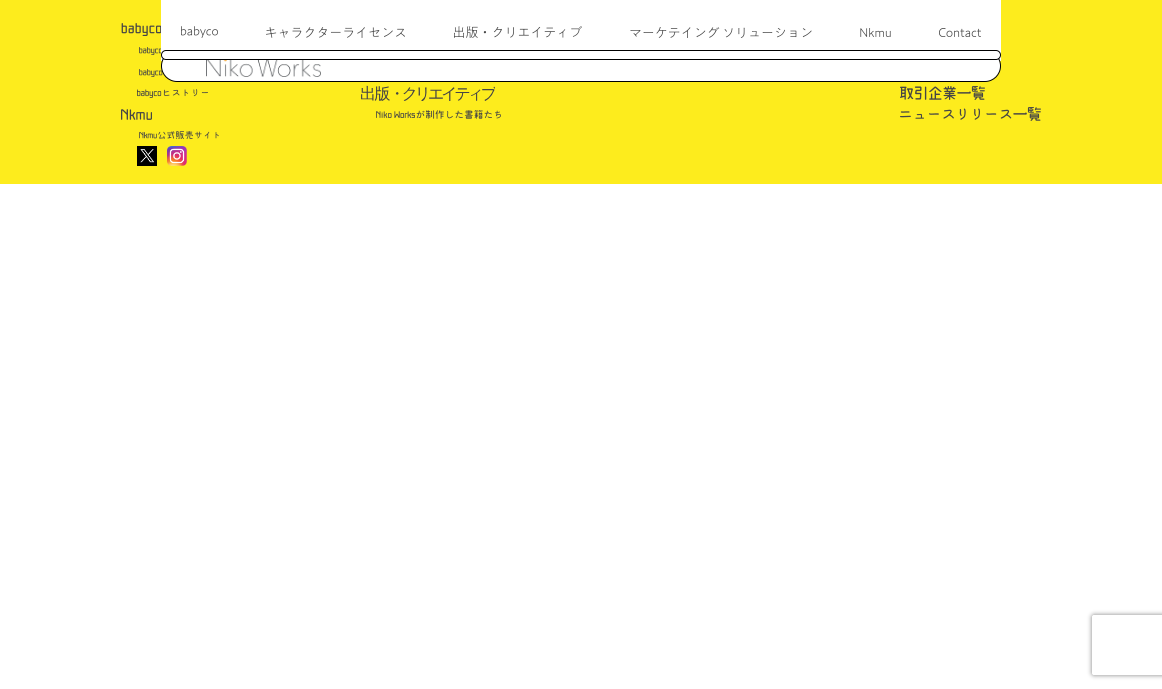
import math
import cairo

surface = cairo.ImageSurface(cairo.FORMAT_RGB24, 1162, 689)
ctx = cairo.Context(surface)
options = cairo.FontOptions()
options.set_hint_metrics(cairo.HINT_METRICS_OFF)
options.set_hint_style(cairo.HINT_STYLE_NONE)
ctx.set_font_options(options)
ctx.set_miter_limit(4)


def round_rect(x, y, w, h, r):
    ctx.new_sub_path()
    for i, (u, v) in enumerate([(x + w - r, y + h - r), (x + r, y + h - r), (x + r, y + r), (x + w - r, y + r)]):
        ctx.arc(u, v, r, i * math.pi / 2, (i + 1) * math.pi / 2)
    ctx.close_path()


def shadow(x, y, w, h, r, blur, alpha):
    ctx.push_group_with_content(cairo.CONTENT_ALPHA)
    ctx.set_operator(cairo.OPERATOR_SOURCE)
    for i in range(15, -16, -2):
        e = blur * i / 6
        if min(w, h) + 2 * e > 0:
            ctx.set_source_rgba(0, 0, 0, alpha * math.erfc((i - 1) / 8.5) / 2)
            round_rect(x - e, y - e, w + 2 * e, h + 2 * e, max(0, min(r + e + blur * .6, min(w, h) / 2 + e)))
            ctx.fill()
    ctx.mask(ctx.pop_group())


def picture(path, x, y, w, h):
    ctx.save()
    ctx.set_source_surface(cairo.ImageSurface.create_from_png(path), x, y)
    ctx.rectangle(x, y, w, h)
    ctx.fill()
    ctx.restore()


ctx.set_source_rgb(1, 1, 1)
ctx.paint()
ctx.set_source_rgb(0.992, 0.925, 0.114)
ctx.rectangle(0, 0, 1162, 184)
ctx.fill()
picture("img1.png", 121, 23, 40, 13)
picture("img2.png", 139, 47, 22, 8)
picture("img3.png", 139, 69, 24, 8)
picture("img4.png", 137, 89, 71, 9)
picture("img5.png", 121, 109, 31, 11)
picture("img6.png", 139, 131, 80, 8)
picture("img7.png", 137, 146, 20, 20)
picture("img8.png", 167, 146, 20, 20)
picture("img9.png", 361, 85, 134, 16)
picture("img10.png", 376, 110, 125, 9)
picture("img11.png", 900, 86, 85, 14)
picture("img12.png", 900, 107, 141, 14)
ctx.set_source_rgb(1, 1, 1)
ctx.rectangle(161, 0, 840, 61)
ctx.fill()
picture("img13.png", 181, 26, 37, 12)
picture("img14.png", 266, 27, 139, 11)
picture("img15.png", 454, 26, 128, 12)
picture("img16.png", 630, 27, 182, 11)
picture("img17.png", 860, 28, 31, 9)
picture("img18.png", 939, 28, 42, 9)
round_rect(161.5, 50.5, 839, 31, 15.5)
ctx.fill_preserve()
ctx.set_source_rgb(0, 0, 0)
ctx.set_line_width(1)
ctx.stroke()
picture("img19.png", 206, 60, 115, 17)
ctx.set_source_rgb(1, 1, 1)
round_rect(161.5, 50.5, 839, 9, 4.5)
ctx.fill_preserve()
ctx.set_source_rgb(0, 0, 0)
ctx.stroke()
ctx.save()
ctx.set_fill_rule(cairo.FILL_RULE_EVEN_ODD)
ctx.new_path()
ctx.move_to(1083, 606)
ctx.line_to(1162, 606)
ctx.line_to(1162, 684)
ctx.line_to(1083, 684)
ctx.close_path()
ctx.move_to(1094, 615)
ctx.line_to(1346, 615)
ctx.curve_to(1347, 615, 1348, 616, 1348, 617)
ctx.line_to(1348, 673)
ctx.curve_to(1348, 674, 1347, 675, 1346, 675)
ctx.line_to(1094, 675)
ctx.curve_to(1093, 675, 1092, 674, 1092, 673)
ctx.line_to(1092, 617)
ctx.curve_to(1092, 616, 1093, 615, 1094, 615)
ctx.close_path()
ctx.clip()
ctx.set_source_rgb(0.502, 0.502, 0.502)
shadow(1092, 615, 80, 60, 2, 2.5, 1)
ctx.restore()
surface.write_to_png("page.png")
